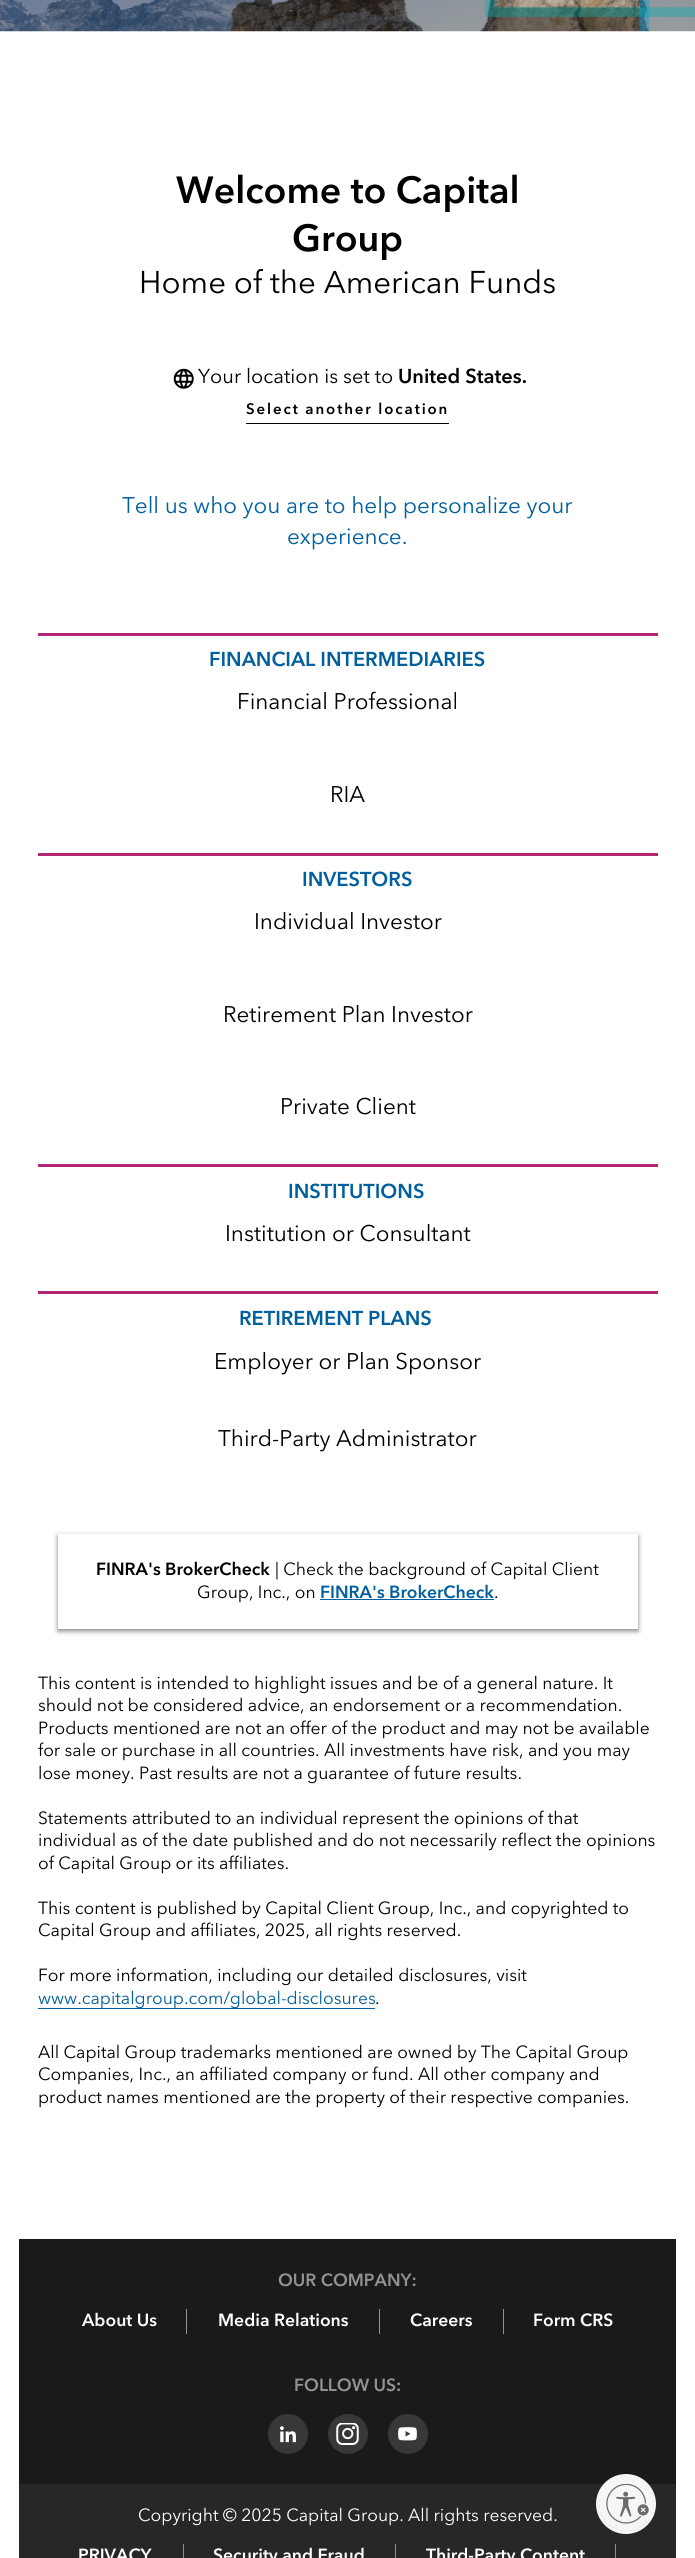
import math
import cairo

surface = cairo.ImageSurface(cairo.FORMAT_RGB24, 695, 2558)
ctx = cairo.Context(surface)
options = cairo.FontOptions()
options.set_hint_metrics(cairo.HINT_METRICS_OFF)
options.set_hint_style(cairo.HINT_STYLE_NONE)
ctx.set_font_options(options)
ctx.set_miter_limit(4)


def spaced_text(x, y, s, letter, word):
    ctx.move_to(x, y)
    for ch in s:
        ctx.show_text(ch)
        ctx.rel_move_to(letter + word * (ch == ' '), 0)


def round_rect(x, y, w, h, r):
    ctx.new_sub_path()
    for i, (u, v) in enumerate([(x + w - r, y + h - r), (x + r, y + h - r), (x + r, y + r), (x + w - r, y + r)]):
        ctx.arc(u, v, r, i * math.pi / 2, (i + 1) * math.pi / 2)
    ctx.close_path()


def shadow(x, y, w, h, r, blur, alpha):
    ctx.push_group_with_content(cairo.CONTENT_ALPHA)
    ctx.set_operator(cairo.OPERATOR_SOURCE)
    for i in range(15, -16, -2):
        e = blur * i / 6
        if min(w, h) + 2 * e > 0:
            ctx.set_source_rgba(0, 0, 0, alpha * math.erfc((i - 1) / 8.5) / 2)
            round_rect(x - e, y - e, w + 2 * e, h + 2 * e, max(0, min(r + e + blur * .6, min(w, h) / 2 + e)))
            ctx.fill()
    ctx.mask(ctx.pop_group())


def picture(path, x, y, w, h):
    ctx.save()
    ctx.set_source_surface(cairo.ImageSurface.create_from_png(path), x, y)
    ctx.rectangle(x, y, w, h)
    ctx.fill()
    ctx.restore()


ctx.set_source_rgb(1, 1, 1)
ctx.paint()
picture("img1.png", 0, 0, 695, 32)
ctx.select_font_face("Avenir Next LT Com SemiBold")
ctx.set_font_size(37.5)
ctx.set_source_rgb(0, 0, 0)
ctx.move_to(176, 203)
ctx.show_text("Welcome to Capital")
ctx.move_to(292, 251)
ctx.show_text("Group")
ctx.select_font_face("Avenir Next LT Com")
ctx.set_font_size(31.25)
ctx.move_to(139, 293)
ctx.show_text("Home of the American Funds")
picture("img2.png", 173, 368, 21, 21)
ctx.set_font_size(20)
ctx.move_to(198, 383)
ctx.show_text("Your location is set to")
ctx.select_font_face("Avenir Next LT Com SemiBold")
ctx.move_to(398, 383)
ctx.show_text("United States.")
ctx.rectangle(246, 423, 203, 1)
ctx.fill()
ctx.set_font_size(15)
spaced_text(246, 414, "Select another location", 1.9, 0)
ctx.select_font_face("Avenir Next LT Com")
ctx.set_font_size(22.5)
ctx.set_source_rgb(0, 0.373, 0.62)
ctx.move_to(122, 513)
ctx.show_text("Tell us who you are to help personalize your")
ctx.move_to(287, 544)
ctx.show_text("experience.")
ctx.set_source_rgb(0.706, 0.145, 0.451)
ctx.rectangle(38, 633, 620, 3)
ctx.fill()
ctx.select_font_face("Avenir Next LT Com SemiBold")
ctx.set_font_size(20)
ctx.set_source_rgb(0, 0.373, 0.62)
ctx.move_to(209, 666)
ctx.show_text("FINANCIAL INTERMEDIARIES")
ctx.select_font_face("Avenir Next LT Com")
ctx.set_font_size(22.5)
ctx.set_source_rgb(0, 0, 0)
ctx.move_to(237, 709)
ctx.show_text("Financial Professional")
ctx.move_to(330, 802)
ctx.show_text("RIA")
ctx.set_source_rgb(0.706, 0.145, 0.451)
ctx.rectangle(38, 853, 620, 3)
ctx.fill()
ctx.select_font_face("Avenir Next LT Com SemiBold")
ctx.set_font_size(20)
ctx.set_source_rgb(0, 0.373, 0.62)
ctx.move_to(302, 886)
ctx.show_text("INVESTORS")
ctx.select_font_face("Avenir Next LT Com")
ctx.set_font_size(22.5)
ctx.set_source_rgb(0, 0, 0)
ctx.move_to(254, 929)
ctx.show_text("Individual Investor")
ctx.move_to(223, 1022)
ctx.show_text("Retirement Plan Investor")
ctx.move_to(280, 1114)
ctx.show_text("Private Client")
ctx.set_source_rgb(0.706, 0.145, 0.451)
ctx.rectangle(38, 1164, 620, 3)
ctx.fill()
ctx.select_font_face("Avenir Next LT Com SemiBold")
ctx.set_font_size(20)
ctx.set_source_rgb(0, 0.373, 0.62)
ctx.move_to(288, 1198)
ctx.show_text("INSTITUTIONS")
ctx.select_font_face("Avenir Next LT Com")
ctx.set_font_size(22.5)
ctx.set_source_rgb(0, 0, 0)
ctx.move_to(225, 1241)
ctx.show_text("Institution or Consultant")
ctx.set_source_rgb(0.706, 0.145, 0.451)
ctx.rectangle(38, 1291, 620, 3)
ctx.fill()
ctx.select_font_face("Avenir Next LT Com SemiBold")
ctx.set_font_size(20)
ctx.set_source_rgb(0, 0.373, 0.62)
ctx.move_to(239, 1325)
ctx.show_text("RETIREMENT PLANS")
ctx.select_font_face("Avenir Next LT Com")
ctx.set_font_size(22.5)
ctx.set_source_rgb(0, 0, 0)
ctx.move_to(214, 1369)
ctx.show_text("Employer or Plan Sponsor")
ctx.move_to(218, 1446)
ctx.show_text("Third-Party Administrator")
ctx.save()
ctx.set_fill_rule(cairo.FILL_RULE_EVEN_ODD)
ctx.new_path()
ctx.move_to(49, 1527)
ctx.line_to(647, 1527)
ctx.line_to(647, 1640)
ctx.line_to(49, 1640)
ctx.close_path()
ctx.move_to(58, 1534)
ctx.line_to(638, 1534)
ctx.line_to(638, 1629)
ctx.line_to(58, 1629)
ctx.close_path()
ctx.clip()
ctx.set_source_rgb(0, 0, 0)
shadow(58, 1536, 580, 95, 0, 2.5, 0.5)
ctx.restore()
ctx.select_font_face("Avenir Next LT Com SemiBold")
ctx.set_font_size(17.5)
ctx.move_to(96, 1575)
ctx.show_text("FINRA's BrokerCheck")
ctx.select_font_face("Avenir Next LT Com")
ctx.move_to(275, 1575)
ctx.show_text("| Check the background of Capital Client")
ctx.move_to(197, 1598)
ctx.show_text("Group, Inc., on")
ctx.select_font_face("Avenir Next LT Com SemiBold")
ctx.set_source_rgb(0, 0.373, 0.62)
ctx.move_to(320, 1598)
ctx.show_text("FINRA's BrokerCheck")
ctx.rectangle(320, 1599, 174, 1)
ctx.fill()
ctx.select_font_face("Avenir Next LT Com")
ctx.set_source_rgb(0, 0, 0)
ctx.move_to(494, 1598)
ctx.show_text(".")
ctx.move_to(38, 1689)
ctx.show_text("This content is intended to highlight issues and be of a general nature. It")
ctx.move_to(38, 1711)
ctx.show_text("should not be considered advice, an endorsement or a recommendation.")
ctx.move_to(38, 1734)
ctx.show_text("Products mentioned are not an offer of the product and may not be available")
ctx.move_to(38, 1756)
ctx.show_text("for sale or purchase in all countries. All investments have risk, and you may")
ctx.move_to(38, 1779)
ctx.show_text("lose money. Past results are not a guarantee of future results.")
ctx.move_to(38, 1824)
ctx.show_text("Statements attributed to an individual represent the opinions of that")
ctx.move_to(38, 1846)
ctx.show_text("individual as of the date published and do not necessarily reflect the opinions")
ctx.move_to(38, 1869)
ctx.show_text("of Capital Group or its affiliates.")
ctx.move_to(38, 1914)
ctx.show_text("This content is published by Capital Client Group, Inc., and copyrighted to")
ctx.move_to(38, 1936)
ctx.show_text("Capital Group and affiliates, 2025, all rights reserved.")
ctx.move_to(38, 1981)
ctx.show_text("For more information, including our detailed disclosures, visit")
ctx.set_source_rgb(0, 0.373, 0.62)
ctx.rectangle(38, 2008, 337, 1)
ctx.fill()
ctx.move_to(38, 2004)
ctx.show_text("www.capitalgroup.com/global-disclosures")
ctx.set_source_rgb(0, 0, 0)
ctx.move_to(375, 2004)
ctx.show_text(".")
ctx.move_to(38, 2058)
ctx.show_text("All Capital Group trademarks mentioned are owned by The Capital Group")
ctx.move_to(38, 2080)
ctx.show_text("Companies, Inc., an affiliated company or fund. All other company and")
ctx.move_to(38, 2103)
ctx.show_text("product names mentioned are the property of their respective companies.")
ctx.set_source_rgb(0.102, 0.102, 0.102)
ctx.rectangle(19, 2239, 657, 245)
ctx.fill()
ctx.select_font_face("Avenir Next LT Com SemiBold")
ctx.set_source_rgb(0.573, 0.573, 0.573)
ctx.move_to(278, 2286)
ctx.show_text("OUR COMPANY:")
ctx.rectangle(186, 2309, 1, 25)
ctx.fill()
ctx.set_source_rgb(1, 1, 1)
ctx.move_to(82, 2326)
ctx.show_text("About Us")
ctx.set_source_rgb(0.573, 0.573, 0.573)
ctx.rectangle(379, 2309, 1, 25)
ctx.fill()
ctx.set_source_rgb(1, 1, 1)
ctx.move_to(218, 2326)
ctx.show_text("Media Relations")
ctx.set_source_rgb(0.573, 0.573, 0.573)
ctx.rectangle(503, 2309, 1, 25)
ctx.fill()
ctx.set_source_rgb(1, 1, 1)
ctx.move_to(410, 2326)
ctx.show_text("Careers")
ctx.move_to(533, 2326)
ctx.show_text("Form CRS")
ctx.set_source_rgb(0.573, 0.573, 0.573)
ctx.move_to(294, 2391)
ctx.show_text("FOLLOW US:")
ctx.set_source_rgb(0.22, 0.22, 0.22)
ctx.new_path()
ctx.arc(288, 2434, 20, 0, 2 * math.pi)
ctx.fill()
picture("img3.png", 280, 2426, 16, 17)
ctx.arc(348, 2434, 20, 0, 2 * math.pi)
ctx.fill()
picture("img4.png", 336, 2423, 23, 22)
ctx.arc(408, 2434, 20, 0, 2 * math.pi)
ctx.fill()
picture("img5.png", 398, 2427, 19, 14)
ctx.set_source_rgb(0.153, 0.153, 0.153)
ctx.rectangle(19, 2484, 657, 74)
ctx.fill()
ctx.select_font_face("Avenir Next LT Com")
ctx.set_source_rgb(1, 1, 1)
ctx.move_to(138, 2521)
ctx.show_text("Copyright © 2025 Capital Group. All rights reserved.")
ctx.set_source_rgb(0.573, 0.573, 0.573)
ctx.rectangle(183, 2544, 1, 14)
ctx.fill()
ctx.select_font_face("Avenir Next LT Com SemiBold")
ctx.set_source_rgb(1, 1, 1)
ctx.move_to(78, 2561)
ctx.show_text("PRIVACY")
ctx.set_source_rgb(0.573, 0.573, 0.573)
ctx.rectangle(395, 2544, 1, 14)
ctx.fill()
ctx.set_source_rgb(1, 1, 1)
ctx.move_to(213, 2561)
ctx.show_text("Security and Fraud")
ctx.set_source_rgb(0.573, 0.573, 0.573)
ctx.rectangle(615, 2544, 1, 14)
ctx.fill()
ctx.set_source_rgb(1, 1, 1)
ctx.move_to(426, 2561)
ctx.show_text("Third-Party Content")
ctx.set_source_rgb(0.922, 0.922, 0.941)
ctx.new_path()
ctx.arc(626, 2504, 28.5, 0, 2 * math.pi)
ctx.fill_preserve()
ctx.set_source_rgb(0.961, 0.961, 0.961)
ctx.set_line_width(3)
ctx.stroke()
ctx.save()
round_rect(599, 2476, 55, 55, 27.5)
ctx.clip()
ctx.set_source_rgb(0, 0, 0)
shadow(599, 2478, 55, 55, 27.5, 1, 0.24)
ctx.restore()
ctx.arc(626.5, 2503.5, 27.5, 0, 2 * math.pi)
ctx.fill()
picture("img6.png", 606, 2484, 43, 40)
surface.write_to_png("page.png")
